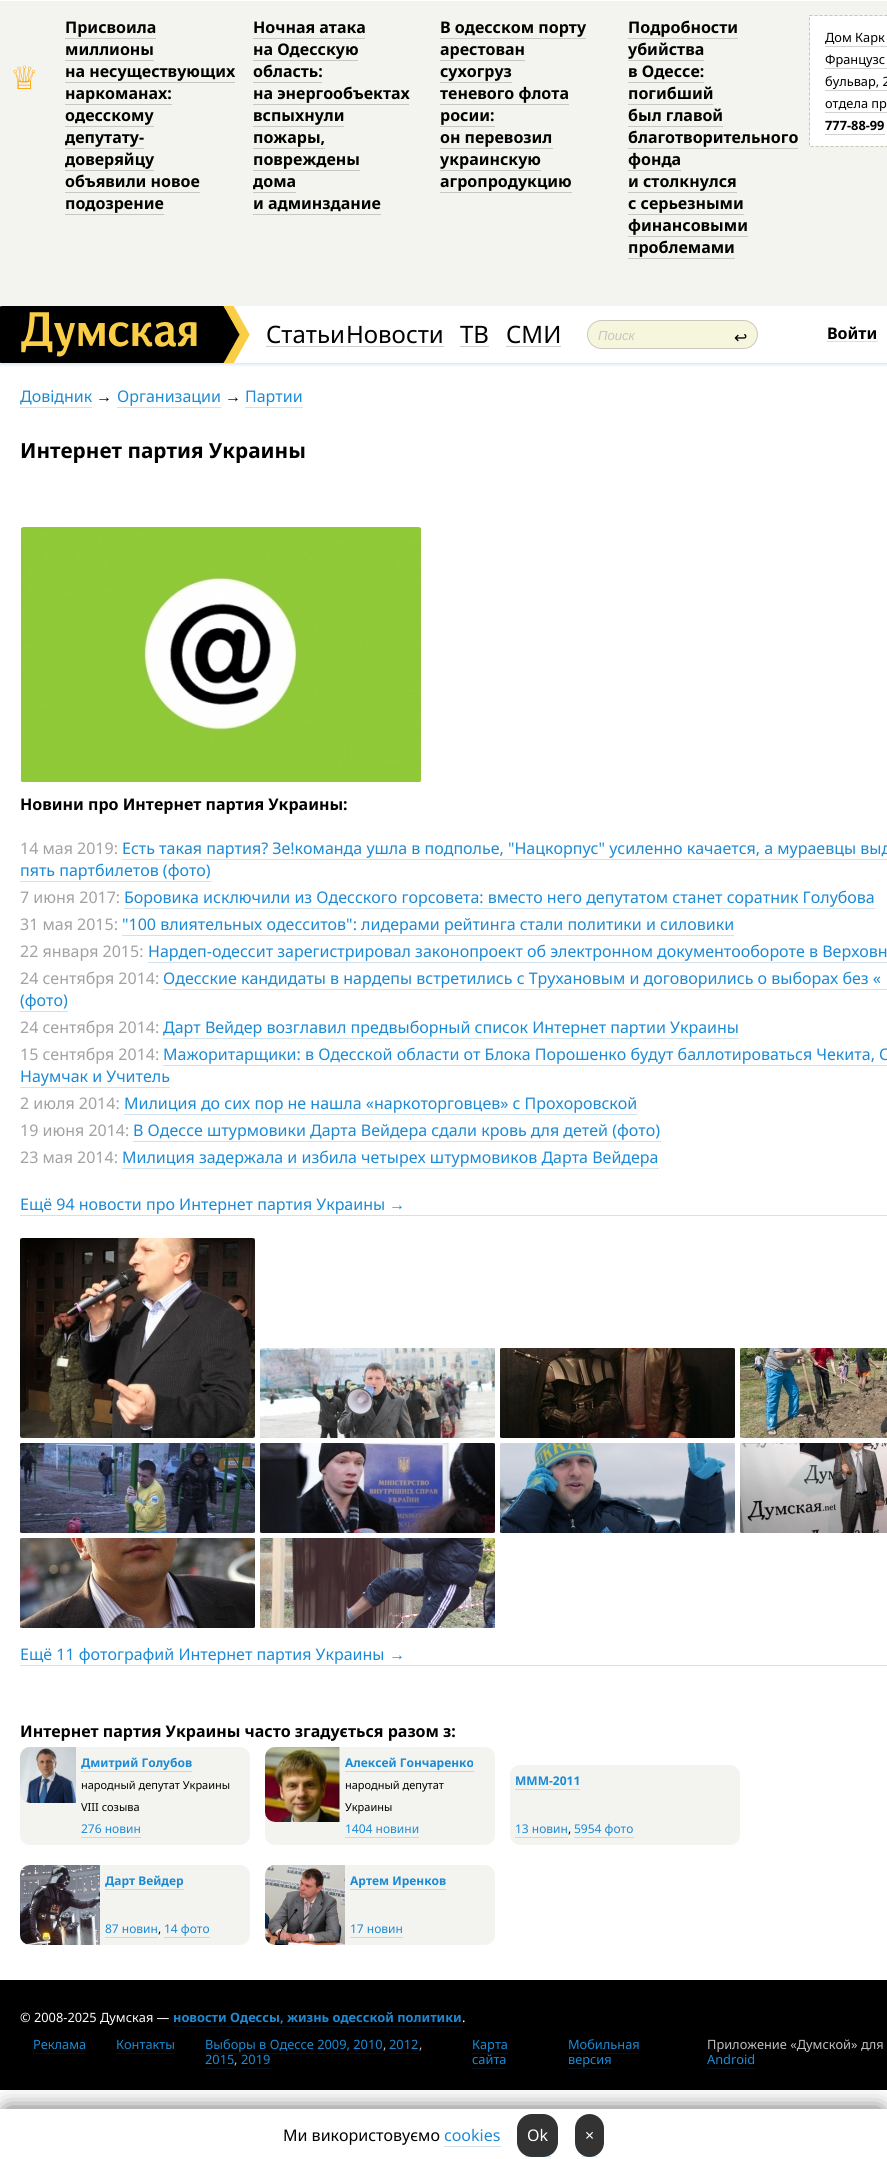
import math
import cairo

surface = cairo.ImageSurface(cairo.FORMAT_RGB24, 887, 2159)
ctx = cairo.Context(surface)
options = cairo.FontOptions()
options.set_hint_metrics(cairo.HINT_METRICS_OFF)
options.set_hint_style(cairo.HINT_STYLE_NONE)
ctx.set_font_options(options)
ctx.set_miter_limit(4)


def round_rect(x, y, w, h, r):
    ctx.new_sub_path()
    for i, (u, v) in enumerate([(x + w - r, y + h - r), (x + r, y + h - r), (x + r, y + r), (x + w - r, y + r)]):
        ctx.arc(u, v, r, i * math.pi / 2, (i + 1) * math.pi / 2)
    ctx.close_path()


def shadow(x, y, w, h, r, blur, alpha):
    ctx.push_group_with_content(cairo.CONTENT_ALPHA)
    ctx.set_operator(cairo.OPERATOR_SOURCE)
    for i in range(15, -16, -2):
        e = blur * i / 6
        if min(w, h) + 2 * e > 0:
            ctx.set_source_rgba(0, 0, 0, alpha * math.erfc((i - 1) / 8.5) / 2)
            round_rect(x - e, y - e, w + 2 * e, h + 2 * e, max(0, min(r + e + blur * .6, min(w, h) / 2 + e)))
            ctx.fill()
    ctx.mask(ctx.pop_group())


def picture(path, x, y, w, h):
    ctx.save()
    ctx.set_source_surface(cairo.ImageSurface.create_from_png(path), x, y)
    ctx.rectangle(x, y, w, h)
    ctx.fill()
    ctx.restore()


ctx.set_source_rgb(1, 1, 1)
ctx.paint()
ctx.save()
ctx.rectangle(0, 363, 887, 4)
ctx.clip()
ctx.set_source_rgb(0, 0.31, 0.478)
shadow(0, 306, 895, 57, 0, 2.5, 0.3)
ctx.restore()
ctx.set_source_rgb(0.953, 0.953, 0.937)
ctx.rectangle(0, 1, 887, 305)
ctx.fill()
ctx.select_font_face("DejaVu Sans")
ctx.set_font_size(32)
ctx.set_source_rgb(1, 0.647, 0)
ctx.move_to(10, 89)
ctx.show_text("♕")
ctx.select_font_face("Noto Sans", cairo.FONT_SLANT_NORMAL, cairo.FONT_WEIGHT_BOLD)
ctx.set_font_size(16)
ctx.set_source_rgb(0, 0, 0)
ctx.move_to(65, 33)
ctx.show_text("Присвоила")
ctx.set_source_rgb(0.78, 0.78, 0.769)
ctx.rectangle(65, 38, 91, 1)
ctx.fill()
ctx.set_source_rgb(0, 0, 0)
ctx.move_to(65, 55)
ctx.show_text("миллионы")
ctx.set_source_rgb(0.78, 0.78, 0.769)
ctx.rectangle(65, 60, 89, 1)
ctx.fill()
ctx.set_source_rgb(0, 0, 0)
ctx.move_to(65, 77)
ctx.show_text("на несуществующих")
ctx.set_source_rgb(0.78, 0.78, 0.769)
ctx.rectangle(65, 82, 170, 1)
ctx.fill()
ctx.set_source_rgb(0, 0, 0)
ctx.move_to(65, 99)
ctx.show_text("наркоманах:")
ctx.set_source_rgb(0.78, 0.78, 0.769)
ctx.rectangle(65, 104, 107, 1)
ctx.fill()
ctx.set_source_rgb(0, 0, 0)
ctx.move_to(65, 121)
ctx.show_text("одесскому")
ctx.set_source_rgb(0.78, 0.78, 0.769)
ctx.rectangle(65, 126, 89, 1)
ctx.fill()
ctx.set_source_rgb(0, 0, 0)
ctx.move_to(65, 143)
ctx.show_text("депутату-")
ctx.set_source_rgb(0.78, 0.78, 0.769)
ctx.rectangle(65, 148, 79, 1)
ctx.fill()
ctx.set_source_rgb(0, 0, 0)
ctx.move_to(65, 165)
ctx.show_text("доверяйцу")
ctx.set_source_rgb(0.78, 0.78, 0.769)
ctx.rectangle(65, 170, 89, 1)
ctx.fill()
ctx.set_source_rgb(0, 0, 0)
ctx.move_to(65, 187)
ctx.show_text("объявили новое")
ctx.set_source_rgb(0.78, 0.78, 0.769)
ctx.rectangle(65, 192, 135, 1)
ctx.fill()
ctx.set_source_rgb(0, 0, 0)
ctx.move_to(65, 209)
ctx.show_text("подозрение")
ctx.set_source_rgb(0.78, 0.78, 0.769)
ctx.rectangle(65, 214, 99, 1)
ctx.fill()
ctx.set_source_rgb(0, 0, 0)
ctx.move_to(253, 33)
ctx.show_text("Ночная атака")
ctx.set_source_rgb(0.78, 0.78, 0.769)
ctx.rectangle(253, 38, 112, 1)
ctx.fill()
ctx.set_source_rgb(0, 0, 0)
ctx.move_to(253, 55)
ctx.show_text("на Одесскую")
ctx.set_source_rgb(0.78, 0.78, 0.769)
ctx.rectangle(253, 60, 105, 1)
ctx.fill()
ctx.set_source_rgb(0, 0, 0)
ctx.move_to(253, 77)
ctx.show_text("область:")
ctx.set_source_rgb(0.78, 0.78, 0.769)
ctx.rectangle(253, 82, 69, 1)
ctx.fill()
ctx.set_source_rgb(0, 0, 0)
ctx.move_to(253, 99)
ctx.show_text("на энергообъектах")
ctx.set_source_rgb(0.78, 0.78, 0.769)
ctx.rectangle(253, 104, 156, 1)
ctx.fill()
ctx.set_source_rgb(0, 0, 0)
ctx.move_to(253, 121)
ctx.show_text("вспыхнули")
ctx.set_source_rgb(0.78, 0.78, 0.769)
ctx.rectangle(253, 126, 91, 1)
ctx.fill()
ctx.set_source_rgb(0, 0, 0)
ctx.move_to(253, 143)
ctx.show_text("пожары,")
ctx.set_source_rgb(0.78, 0.78, 0.769)
ctx.rectangle(253, 148, 72, 1)
ctx.fill()
ctx.set_source_rgb(0, 0, 0)
ctx.move_to(253, 165)
ctx.show_text("повреждены")
ctx.set_source_rgb(0.78, 0.78, 0.769)
ctx.rectangle(253, 170, 107, 1)
ctx.fill()
ctx.set_source_rgb(0, 0, 0)
ctx.move_to(253, 187)
ctx.show_text("дома")
ctx.set_source_rgb(0.78, 0.78, 0.769)
ctx.rectangle(253, 192, 43, 1)
ctx.fill()
ctx.set_source_rgb(0, 0, 0)
ctx.move_to(253, 209)
ctx.show_text("и админздание")
ctx.set_source_rgb(0.78, 0.78, 0.769)
ctx.rectangle(253, 214, 128, 1)
ctx.fill()
ctx.set_source_rgb(0, 0, 0)
ctx.move_to(440, 33)
ctx.show_text("В одесском порту")
ctx.set_source_rgb(0.78, 0.78, 0.769)
ctx.rectangle(440, 38, 146, 1)
ctx.fill()
ctx.set_source_rgb(0, 0, 0)
ctx.move_to(440, 55)
ctx.show_text("арестован")
ctx.set_source_rgb(0.78, 0.78, 0.769)
ctx.rectangle(440, 60, 85, 1)
ctx.fill()
ctx.set_source_rgb(0, 0, 0)
ctx.move_to(440, 77)
ctx.show_text("сухогруз")
ctx.set_source_rgb(0.78, 0.78, 0.769)
ctx.rectangle(440, 82, 72, 1)
ctx.fill()
ctx.set_source_rgb(0, 0, 0)
ctx.move_to(440, 99)
ctx.show_text("теневого флота")
ctx.set_source_rgb(0.78, 0.78, 0.769)
ctx.rectangle(440, 104, 129, 1)
ctx.fill()
ctx.set_source_rgb(0, 0, 0)
ctx.move_to(440, 121)
ctx.show_text("росии:")
ctx.set_source_rgb(0.78, 0.78, 0.769)
ctx.rectangle(440, 126, 55, 1)
ctx.fill()
ctx.set_source_rgb(0, 0, 0)
ctx.move_to(440, 143)
ctx.show_text("он перевозил")
ctx.set_source_rgb(0.78, 0.78, 0.769)
ctx.rectangle(440, 148, 113, 1)
ctx.fill()
ctx.set_source_rgb(0, 0, 0)
ctx.move_to(440, 165)
ctx.show_text("украинскую")
ctx.set_source_rgb(0.78, 0.78, 0.769)
ctx.rectangle(440, 170, 101, 1)
ctx.fill()
ctx.set_source_rgb(0, 0, 0)
ctx.move_to(440, 187)
ctx.show_text("агропродукцию")
ctx.set_source_rgb(0.78, 0.78, 0.769)
ctx.rectangle(440, 192, 132, 1)
ctx.fill()
ctx.set_source_rgb(0, 0, 0)
ctx.move_to(628, 33)
ctx.show_text("Подробности")
ctx.set_source_rgb(0.78, 0.78, 0.769)
ctx.rectangle(628, 38, 110, 1)
ctx.fill()
ctx.set_source_rgb(0, 0, 0)
ctx.move_to(628, 55)
ctx.show_text("убийства")
ctx.set_source_rgb(0.78, 0.78, 0.769)
ctx.rectangle(628, 60, 76, 1)
ctx.fill()
ctx.set_source_rgb(0, 0, 0)
ctx.move_to(628, 77)
ctx.show_text("в Одессе:")
ctx.set_source_rgb(0.78, 0.78, 0.769)
ctx.rectangle(628, 82, 76, 1)
ctx.fill()
ctx.set_source_rgb(0, 0, 0)
ctx.move_to(628, 99)
ctx.show_text("погибший")
ctx.move_to(628, 121)
ctx.show_text("был главой")
ctx.set_source_rgb(0.78, 0.78, 0.769)
ctx.rectangle(628, 104, 85, 1)
ctx.fill()
ctx.rectangle(628, 126, 95, 1)
ctx.fill()
ctx.set_source_rgb(0, 0, 0)
ctx.move_to(628, 143)
ctx.show_text("благотворительного")
ctx.set_source_rgb(0.78, 0.78, 0.769)
ctx.rectangle(628, 148, 170, 1)
ctx.fill()
ctx.set_source_rgb(0, 0, 0)
ctx.move_to(628, 165)
ctx.show_text("фонда")
ctx.set_source_rgb(0.78, 0.78, 0.769)
ctx.rectangle(628, 170, 53, 1)
ctx.fill()
ctx.set_source_rgb(0, 0, 0)
ctx.move_to(628, 187)
ctx.show_text("и столкнулся")
ctx.set_source_rgb(0.78, 0.78, 0.769)
ctx.rectangle(628, 192, 109, 1)
ctx.fill()
ctx.set_source_rgb(0, 0, 0)
ctx.move_to(628, 209)
ctx.show_text("с серьезными")
ctx.set_source_rgb(0.78, 0.78, 0.769)
ctx.rectangle(628, 214, 116, 1)
ctx.fill()
ctx.set_source_rgb(0, 0, 0)
ctx.move_to(628, 231)
ctx.show_text("финансовыми")
ctx.set_source_rgb(0.78, 0.78, 0.769)
ctx.rectangle(628, 236, 120, 1)
ctx.fill()
ctx.set_source_rgb(0, 0, 0)
ctx.move_to(628, 253)
ctx.show_text("проблемами")
ctx.set_source_rgb(0.78, 0.78, 0.769)
ctx.rectangle(628, 258, 107, 1)
ctx.fill()
ctx.set_source_rgb(1, 1, 1)
ctx.rectangle(810, 16, 77, 130)
ctx.fill()
ctx.select_font_face("Noto Sans")
ctx.set_font_size(12.8)
ctx.set_source_rgb(0, 0, 0)
ctx.move_to(825, 42)
ctx.show_text("Дом Карк")
ctx.set_source_rgb(0.82, 0.82, 0.82)
ctx.rectangle(825, 46, 62, 1)
ctx.fill()
ctx.set_source_rgb(0, 0, 0)
ctx.move_to(825, 64)
ctx.show_text("Французс")
ctx.set_source_rgb(0.82, 0.82, 0.82)
ctx.rectangle(825, 68, 62, 1)
ctx.fill()
ctx.set_source_rgb(0, 0, 0)
ctx.move_to(825, 86)
ctx.show_text("бульвар, 2")
ctx.set_source_rgb(0.82, 0.82, 0.82)
ctx.rectangle(825, 90, 62, 1)
ctx.fill()
ctx.set_source_rgb(0, 0, 0)
ctx.move_to(825, 108)
ctx.show_text("отдела пр")
ctx.set_source_rgb(0.82, 0.82, 0.82)
ctx.rectangle(825, 112, 62, 1)
ctx.fill()
ctx.select_font_face("Noto Sans", cairo.FONT_SLANT_NORMAL, cairo.FONT_WEIGHT_BOLD)
ctx.set_source_rgb(0, 0, 0)
ctx.move_to(825, 130)
ctx.show_text("777-88-99")
ctx.set_source_rgb(0.82, 0.82, 0.82)
ctx.rectangle(825, 134, 60, 1)
ctx.fill()
ctx.new_path()
ctx.move_to(809.5, 15.5)
ctx.line_to(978.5, 15.5)
ctx.line_to(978.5, 146.5)
ctx.line_to(809.5, 146.5)
ctx.close_path()
ctx.set_source_rgb(0.792, 0.78, 0.714)
ctx.set_line_width(1)
ctx.set_dash([3, 2])
ctx.stroke()
picture("img1.png", 0, 306, 250, 57)
ctx.set_source_rgb(0.8, 0.8, 0.8)
ctx.rectangle(266, 346, 79, 1)
ctx.fill()
ctx.select_font_face("Noto Sans")
ctx.set_font_size(24)
ctx.set_source_rgb(0, 0, 0)
ctx.move_to(266, 343)
ctx.show_text("Статьи")
ctx.set_source_rgb(0.8, 0.8, 0.8)
ctx.rectangle(346, 346, 98, 1)
ctx.fill()
ctx.set_source_rgb(0, 0, 0)
ctx.move_to(346, 343)
ctx.show_text("Новости")
ctx.set_source_rgb(0.8, 0.8, 0.8)
ctx.rectangle(460, 346, 29, 1)
ctx.fill()
ctx.set_source_rgb(0, 0, 0)
ctx.move_to(460, 343)
ctx.show_text("ТВ")
ctx.set_source_rgb(0.8, 0.8, 0.8)
ctx.rectangle(506, 346, 55, 1)
ctx.fill()
ctx.set_source_rgb(0, 0, 0)
ctx.move_to(506, 343)
ctx.show_text("СМИ")
ctx.set_source_rgb(0.961, 0.961, 0.863)
round_rect(587.5, 320.5, 170, 28, 14)
ctx.fill_preserve()
ctx.set_source_rgb(0.8, 0.78, 0.741)
ctx.set_dash([])
ctx.stroke()
ctx.select_font_face("Liberation Sans", cairo.FONT_SLANT_ITALIC)
ctx.set_font_size(13)
ctx.set_source_rgb(0.776, 0.769, 0.745)
ctx.move_to(598, 340)
ctx.show_text("Поиск")
ctx.select_font_face("DejaVu Sans")
ctx.set_font_size(16)
ctx.set_source_rgb(0, 0, 0)
ctx.move_to(734, 343)
ctx.show_text("↩")
ctx.set_source_rgb(0.82, 0.886, 0.933)
ctx.rectangle(827, 341, 51, 1)
ctx.fill()
ctx.select_font_face("Noto Sans", cairo.FONT_SLANT_NORMAL, cairo.FONT_WEIGHT_BOLD)
ctx.set_source_rgb(0, 0, 0)
ctx.move_to(827, 339)
ctx.show_text("Войти")
ctx.select_font_face("Noto Sans")
ctx.set_source_rgb(0.11, 0.541, 0.831)
ctx.move_to(20, 402)
ctx.show_text("Довідник")
ctx.set_source_rgb(0.82, 0.886, 0.933)
ctx.rectangle(20, 407, 72, 1)
ctx.fill()
ctx.select_font_face("Liberation Serif")
ctx.set_source_rgb(0, 0, 0)
ctx.move_to(96, 402)
ctx.show_text("→")
ctx.select_font_face("Noto Sans")
ctx.set_source_rgb(0.11, 0.541, 0.831)
ctx.move_to(117, 402)
ctx.show_text("Организации")
ctx.set_source_rgb(0.82, 0.886, 0.933)
ctx.rectangle(117, 407, 104, 1)
ctx.fill()
ctx.select_font_face("Liberation Serif")
ctx.set_source_rgb(0, 0, 0)
ctx.move_to(225, 402)
ctx.show_text("→")
ctx.select_font_face("Noto Sans")
ctx.set_source_rgb(0.11, 0.541, 0.831)
ctx.move_to(245, 402)
ctx.show_text("Партии")
ctx.set_source_rgb(0.82, 0.886, 0.933)
ctx.rectangle(245, 407, 58, 1)
ctx.fill()
ctx.select_font_face("Noto Sans", cairo.FONT_SLANT_NORMAL, cairo.FONT_WEIGHT_BOLD)
ctx.set_font_size(20.75)
ctx.set_source_rgb(0, 0, 0)
ctx.move_to(20, 458)
ctx.show_text("Интернет партия Украины")
picture("img2.png", 21, 527, 400, 255)
ctx.set_font_size(16)
ctx.move_to(20, 810)
ctx.show_text("Новини про Интернет партия Украины:")
ctx.select_font_face("Noto Sans")
ctx.set_source_rgb(0.635, 0.635, 0.635)
ctx.move_to(20, 854)
ctx.show_text("14 мая 2019:")
ctx.set_source_rgb(0.11, 0.541, 0.831)
ctx.move_to(122, 854)
ctx.show_text("Есть такая партия? Зе!команда ушла в подполье, \"Нацкорпус\" усиленно качается, а мураевцы выд")
ctx.set_source_rgb(0.82, 0.886, 0.933)
ctx.rectangle(122, 859, 765, 1)
ctx.fill()
ctx.set_source_rgb(0.11, 0.541, 0.831)
ctx.move_to(20, 876)
ctx.show_text("пять партбилетов (фото)")
ctx.set_source_rgb(0.82, 0.886, 0.933)
ctx.rectangle(20, 881, 191, 1)
ctx.fill()
ctx.set_source_rgb(0.635, 0.635, 0.635)
ctx.move_to(20, 903)
ctx.show_text("7 июня 2017:")
ctx.set_source_rgb(0.11, 0.541, 0.831)
ctx.move_to(124, 903)
ctx.show_text("Боровика исключили из Одесского горсовета: вместо него депутатом станет соратник Голубова")
ctx.set_source_rgb(0.82, 0.886, 0.933)
ctx.rectangle(124, 908, 751, 1)
ctx.fill()
ctx.set_source_rgb(0.635, 0.635, 0.635)
ctx.move_to(20, 930)
ctx.show_text("31 мая 2015:")
ctx.set_source_rgb(0.11, 0.541, 0.831)
ctx.move_to(122, 930)
ctx.show_text("\"100 влиятельных одесситов\": лидерами рейтинга стали политики и силовики")
ctx.set_source_rgb(0.82, 0.886, 0.933)
ctx.rectangle(122, 935, 612, 1)
ctx.fill()
ctx.set_source_rgb(0.635, 0.635, 0.635)
ctx.move_to(20, 957)
ctx.show_text("22 января 2015:")
ctx.set_source_rgb(0.11, 0.541, 0.831)
ctx.move_to(148, 957)
ctx.show_text("Нардеп-одессит зарегистрировал законопроект об электронном документообороте в Верховн")
ctx.set_source_rgb(0.82, 0.886, 0.933)
ctx.rectangle(148, 962, 739, 1)
ctx.fill()
ctx.set_source_rgb(0.635, 0.635, 0.635)
ctx.move_to(20, 984)
ctx.show_text("24 сентября 2014:")
ctx.set_source_rgb(0.11, 0.541, 0.831)
ctx.move_to(163, 984)
ctx.show_text("Одесские кандидаты в нардепы встретились с Трухановым и договорились о выборах без «")
ctx.set_source_rgb(0.82, 0.886, 0.933)
ctx.rectangle(163, 989, 724, 1)
ctx.fill()
ctx.set_source_rgb(0.11, 0.541, 0.831)
ctx.move_to(20, 1006)
ctx.show_text("(фото)")
ctx.set_source_rgb(0.82, 0.886, 0.933)
ctx.rectangle(20, 1011, 48, 1)
ctx.fill()
ctx.set_source_rgb(0.635, 0.635, 0.635)
ctx.move_to(20, 1033)
ctx.show_text("24 сентября 2014:")
ctx.set_source_rgb(0.11, 0.541, 0.831)
ctx.move_to(163, 1033)
ctx.show_text("Дарт Вейдер возглавил предвыборный список Интернет партии Украины")
ctx.set_source_rgb(0.82, 0.886, 0.933)
ctx.rectangle(163, 1038, 576, 1)
ctx.fill()
ctx.set_source_rgb(0.635, 0.635, 0.635)
ctx.move_to(20, 1060)
ctx.show_text("15 сентября 2014:")
ctx.set_source_rgb(0.11, 0.541, 0.831)
ctx.move_to(163, 1060)
ctx.show_text("Мажоритарщики: в Одесской области от Блока Порошенко будут баллотироваться Чекита, С")
ctx.set_source_rgb(0.82, 0.886, 0.933)
ctx.rectangle(163, 1065, 724, 1)
ctx.fill()
ctx.set_source_rgb(0.11, 0.541, 0.831)
ctx.move_to(20, 1082)
ctx.show_text("Наумчак и Учитель")
ctx.set_source_rgb(0.82, 0.886, 0.933)
ctx.rectangle(20, 1087, 150, 1)
ctx.fill()
ctx.set_source_rgb(0.635, 0.635, 0.635)
ctx.move_to(20, 1109)
ctx.show_text("2 июля 2014:")
ctx.set_source_rgb(0.11, 0.541, 0.831)
ctx.move_to(124, 1109)
ctx.show_text("Милиция до сих пор не нашла «наркоторговцев» с Прохоровской")
ctx.set_source_rgb(0.82, 0.886, 0.933)
ctx.rectangle(124, 1114, 513, 1)
ctx.fill()
ctx.set_source_rgb(0.635, 0.635, 0.635)
ctx.move_to(20, 1136)
ctx.show_text("19 июня 2014:")
ctx.set_source_rgb(0.11, 0.541, 0.831)
ctx.move_to(133, 1136)
ctx.show_text("В Одессе штурмовики Дарта Вейдера сдали кровь для детей (фото)")
ctx.set_source_rgb(0.82, 0.886, 0.933)
ctx.rectangle(133, 1141, 528, 1)
ctx.fill()
ctx.set_source_rgb(0.635, 0.635, 0.635)
ctx.move_to(20, 1163)
ctx.show_text("23 мая 2014:")
ctx.set_source_rgb(0.11, 0.541, 0.831)
ctx.move_to(122, 1163)
ctx.show_text("Милиция задержала и избила четырех штурмовиков Дарта Вейдера")
ctx.set_source_rgb(0.82, 0.886, 0.933)
ctx.rectangle(122, 1168, 537, 1)
ctx.fill()
ctx.rectangle(20, 1215, 867, 1)
ctx.fill()
ctx.set_source_rgb(0.11, 0.541, 0.831)
ctx.move_to(20, 1210)
ctx.show_text("Ещё 94 новости про Интернет партия Украины")
ctx.select_font_face("Liberation Serif")
ctx.move_to(389, 1210)
ctx.show_text("→")
picture("img3.png", 20, 1238, 235, 200)
picture("img4.png", 260, 1348, 235, 90)
picture("img5.png", 500, 1348, 235, 90)
picture("img6.png", 740, 1348, 147, 90)
picture("img7.png", 20, 1443, 235, 90)
picture("img8.png", 260, 1443, 235, 90)
picture("img9.png", 500, 1443, 235, 90)
picture("img10.png", 740, 1443, 147, 90)
picture("img11.png", 20, 1538, 235, 90)
picture("img12.png", 260, 1538, 235, 90)
ctx.set_source_rgb(0.82, 0.886, 0.933)
ctx.rectangle(20, 1665, 867, 1)
ctx.fill()
ctx.select_font_face("Noto Sans")
ctx.set_source_rgb(0.11, 0.541, 0.831)
ctx.move_to(20, 1660)
ctx.show_text("Ещё 11 фотографий Интернет партия Украины")
ctx.select_font_face("Liberation Serif")
ctx.move_to(389, 1660)
ctx.show_text("→")
ctx.select_font_face("Noto Sans", cairo.FONT_SLANT_NORMAL, cairo.FONT_WEIGHT_BOLD)
ctx.set_source_rgb(0, 0, 0)
ctx.move_to(20, 1737)
ctx.show_text("Интернет партия Украины часто згадується разом з:")
ctx.set_source_rgb(0.953, 0.957, 0.937)
round_rect(20, 1747, 230, 98, 10)
ctx.fill()
picture("img13.png", 20, 1747, 56, 56)
ctx.set_font_size(12)
ctx.set_source_rgb(0.11, 0.541, 0.831)
ctx.move_to(81, 1767)
ctx.show_text("Дмитрий Голубов")
ctx.set_source_rgb(0.78, 0.851, 0.882)
ctx.rectangle(81, 1771, 111, 1)
ctx.fill()
ctx.select_font_face("Noto Sans")
ctx.set_font_size(11)
ctx.set_source_rgb(0, 0, 0)
ctx.move_to(81, 1789)
ctx.show_text("народный депутат Украины")
ctx.move_to(81, 1811)
ctx.show_text("VIII созыва")
ctx.set_font_size(12)
ctx.set_source_rgb(0.11, 0.541, 0.831)
ctx.move_to(81, 1833)
ctx.show_text("276 новин")
ctx.set_source_rgb(0.78, 0.851, 0.882)
ctx.rectangle(81, 1837, 60, 1)
ctx.fill()
ctx.set_source_rgb(0.953, 0.957, 0.937)
round_rect(265, 1747, 230, 98, 10)
ctx.fill()
picture("img14.png", 265, 1747, 75, 75)
ctx.select_font_face("Noto Sans", cairo.FONT_SLANT_NORMAL, cairo.FONT_WEIGHT_BOLD)
ctx.set_source_rgb(0.11, 0.541, 0.831)
ctx.move_to(345, 1767)
ctx.show_text("Алексей Гончаренко")
ctx.set_source_rgb(0.78, 0.851, 0.882)
ctx.rectangle(345, 1771, 129, 1)
ctx.fill()
ctx.select_font_face("Noto Sans")
ctx.set_font_size(11)
ctx.set_source_rgb(0, 0, 0)
ctx.move_to(345, 1789)
ctx.show_text("народный депутат")
ctx.move_to(345, 1811)
ctx.show_text("Украины")
ctx.set_font_size(12)
ctx.set_source_rgb(0.11, 0.541, 0.831)
ctx.move_to(345, 1833)
ctx.show_text("1404 новини")
ctx.set_source_rgb(0.78, 0.851, 0.882)
ctx.rectangle(345, 1837, 74, 1)
ctx.fill()
ctx.set_source_rgb(0.953, 0.957, 0.937)
round_rect(510, 1765, 230, 80, 10)
ctx.fill()
ctx.select_font_face("Noto Sans", cairo.FONT_SLANT_NORMAL, cairo.FONT_WEIGHT_BOLD)
ctx.set_source_rgb(0.11, 0.541, 0.831)
ctx.move_to(515, 1785)
ctx.show_text("МММ-2011")
ctx.set_source_rgb(0.78, 0.851, 0.882)
ctx.rectangle(515, 1789, 65, 1)
ctx.fill()
ctx.select_font_face("Noto Sans")
ctx.set_source_rgb(0.11, 0.541, 0.831)
ctx.move_to(515, 1833)
ctx.show_text("13 новин")
ctx.set_source_rgb(0.78, 0.851, 0.882)
ctx.rectangle(515, 1837, 53, 1)
ctx.fill()
ctx.set_source_rgb(0, 0, 0)
ctx.move_to(568, 1833)
ctx.show_text(",")
ctx.set_source_rgb(0.11, 0.541, 0.831)
ctx.move_to(574, 1833)
ctx.show_text("5954 фото")
ctx.set_source_rgb(0.78, 0.851, 0.882)
ctx.rectangle(574, 1837, 60, 1)
ctx.fill()
ctx.set_source_rgb(0.953, 0.957, 0.937)
round_rect(20, 1865, 230, 80, 10)
ctx.fill()
picture("img15.png", 20, 1865, 80, 80)
ctx.select_font_face("Noto Sans", cairo.FONT_SLANT_NORMAL, cairo.FONT_WEIGHT_BOLD)
ctx.set_source_rgb(0.11, 0.541, 0.831)
ctx.move_to(105, 1885)
ctx.show_text("Дарт Вейдер")
ctx.set_source_rgb(0.78, 0.851, 0.882)
ctx.rectangle(105, 1889, 79, 1)
ctx.fill()
ctx.select_font_face("Noto Sans")
ctx.set_source_rgb(0.11, 0.541, 0.831)
ctx.move_to(105, 1933)
ctx.show_text("87 новин")
ctx.set_source_rgb(0.78, 0.851, 0.882)
ctx.rectangle(105, 1937, 53, 1)
ctx.fill()
ctx.set_source_rgb(0, 0, 0)
ctx.move_to(158, 1933)
ctx.show_text(",")
ctx.set_source_rgb(0.11, 0.541, 0.831)
ctx.move_to(164, 1933)
ctx.show_text("14 фото")
ctx.set_source_rgb(0.78, 0.851, 0.882)
ctx.rectangle(164, 1937, 46, 1)
ctx.fill()
ctx.set_source_rgb(0.953, 0.957, 0.937)
round_rect(265, 1865, 230, 80, 10)
ctx.fill()
picture("img16.png", 265, 1865, 80, 80)
ctx.select_font_face("Noto Sans", cairo.FONT_SLANT_NORMAL, cairo.FONT_WEIGHT_BOLD)
ctx.set_source_rgb(0.11, 0.541, 0.831)
ctx.move_to(350, 1885)
ctx.show_text("Артем Иренков")
ctx.set_source_rgb(0.78, 0.851, 0.882)
ctx.rectangle(350, 1889, 96, 1)
ctx.fill()
ctx.select_font_face("Noto Sans")
ctx.set_source_rgb(0.11, 0.541, 0.831)
ctx.move_to(350, 1933)
ctx.show_text("17 новин")
ctx.set_source_rgb(0.78, 0.851, 0.882)
ctx.rectangle(350, 1937, 53, 1)
ctx.fill()
ctx.set_source_rgb(0, 0, 0)
ctx.rectangle(0, 1980, 887, 110)
ctx.fill()
ctx.set_font_size(12.8)
ctx.set_source_rgb(1, 1, 1)
ctx.move_to(20, 2022)
ctx.show_text("© 2008-2025 Думская —")
ctx.select_font_face("Noto Sans", cairo.FONT_SLANT_NORMAL, cairo.FONT_WEIGHT_BOLD)
ctx.set_source_rgb(0.11, 0.541, 0.831)
ctx.move_to(173, 2022)
ctx.show_text("новости Одессы, жизнь одесской политики")
ctx.set_source_rgb(0, 0.067, 0.114)
ctx.rectangle(173, 2026, 289, 1)
ctx.fill()
ctx.select_font_face("Noto Sans")
ctx.set_source_rgb(1, 1, 1)
ctx.move_to(462, 2022)
ctx.show_text(".")
ctx.set_source_rgb(0.11, 0.541, 0.831)
ctx.move_to(33, 2049)
ctx.show_text("Реклама")
ctx.set_source_rgb(0, 0.067, 0.114)
ctx.rectangle(33, 2053, 53, 1)
ctx.fill()
ctx.set_source_rgb(0.11, 0.541, 0.831)
ctx.move_to(116, 2049)
ctx.show_text("Контакты")
ctx.set_source_rgb(0, 0.067, 0.114)
ctx.rectangle(116, 2053, 59, 1)
ctx.fill()
ctx.set_source_rgb(0.11, 0.541, 0.831)
ctx.move_to(205, 2049)
ctx.show_text("Выборы в Одессе 2009, 2010")
ctx.set_source_rgb(0, 0.067, 0.114)
ctx.rectangle(205, 2053, 178, 1)
ctx.fill()
ctx.set_source_rgb(0.753, 0.753, 0.753)
ctx.move_to(383, 2049)
ctx.show_text(",")
ctx.set_source_rgb(0.11, 0.541, 0.831)
ctx.move_to(389, 2049)
ctx.show_text("2012")
ctx.set_source_rgb(0, 0.067, 0.114)
ctx.rectangle(389, 2053, 30, 1)
ctx.fill()
ctx.set_source_rgb(0.753, 0.753, 0.753)
ctx.move_to(419, 2049)
ctx.show_text(",")
ctx.set_source_rgb(0.11, 0.541, 0.831)
ctx.move_to(205, 2064)
ctx.show_text("2015")
ctx.set_source_rgb(0, 0.067, 0.114)
ctx.rectangle(205, 2068, 29, 1)
ctx.fill()
ctx.set_source_rgb(0.753, 0.753, 0.753)
ctx.move_to(234, 2064)
ctx.show_text(",")
ctx.set_source_rgb(0.11, 0.541, 0.831)
ctx.move_to(241, 2064)
ctx.show_text("2019")
ctx.set_source_rgb(0, 0.067, 0.114)
ctx.rectangle(241, 2068, 30, 1)
ctx.fill()
ctx.set_source_rgb(0.11, 0.541, 0.831)
ctx.move_to(472, 2049)
ctx.show_text("Карта")
ctx.move_to(472, 2064)
ctx.show_text("сайта")
ctx.set_source_rgb(0, 0.067, 0.114)
ctx.rectangle(472, 2053, 36, 1)
ctx.fill()
ctx.rectangle(472, 2068, 34, 1)
ctx.fill()
ctx.set_source_rgb(0.11, 0.541, 0.831)
ctx.move_to(568, 2049)
ctx.show_text("Мобильная")
ctx.set_source_rgb(0, 0.067, 0.114)
ctx.rectangle(568, 2053, 71, 1)
ctx.fill()
ctx.set_source_rgb(0.11, 0.541, 0.831)
ctx.move_to(568, 2064)
ctx.show_text("версия")
ctx.set_source_rgb(0, 0.067, 0.114)
ctx.rectangle(568, 2068, 44, 1)
ctx.fill()
ctx.set_source_rgb(0.753, 0.753, 0.753)
ctx.move_to(707, 2049)
ctx.show_text("Приложение «Думской» для")
ctx.set_source_rgb(0.11, 0.541, 0.831)
ctx.move_to(707, 2064)
ctx.show_text("Android")
ctx.set_source_rgb(0, 0.067, 0.114)
ctx.rectangle(707, 2068, 48, 1)
ctx.fill()
ctx.save()
ctx.rectangle(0, 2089, 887, 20)
ctx.clip()
ctx.set_source_rgb(0, 0, 0)
shadow(7, 2111, 873, 36, 0, 11.5, 0.75)
ctx.restore()
ctx.set_font_size(16)
ctx.set_source_rgb(0, 0, 0)
ctx.move_to(283, 2141)
ctx.show_text("Ми використовуємо")
ctx.set_source_rgb(0.11, 0.541, 0.831)
ctx.move_to(444, 2141)
ctx.show_text("cookies")
ctx.set_source_rgb(0.82, 0.886, 0.933)
ctx.rectangle(444, 2146, 57, 1)
ctx.fill()
ctx.set_source_rgb(0.2, 0.2, 0.2)
round_rect(517, 2114, 41, 43, 15)
ctx.fill()
ctx.set_source_rgb(1, 1, 1)
ctx.move_to(527, 2141)
ctx.show_text("Ok")
ctx.set_source_rgba(0, 0.361, 0.639, 0.18)
ctx.rectangle(525, 2156, 26, 1)
ctx.fill()
ctx.set_source_rgb(0.2, 0.2, 0.2)
round_rect(575, 2114, 29, 43, 14.5)
ctx.fill()
ctx.set_source_rgb(1, 1, 1)
ctx.move_to(585, 2141)
ctx.show_text("×")
ctx.set_source_rgba(0, 0.361, 0.639, 0.18)
ctx.rectangle(582, 2156, 15, 1)
ctx.fill()
surface.write_to_png("page.png")
